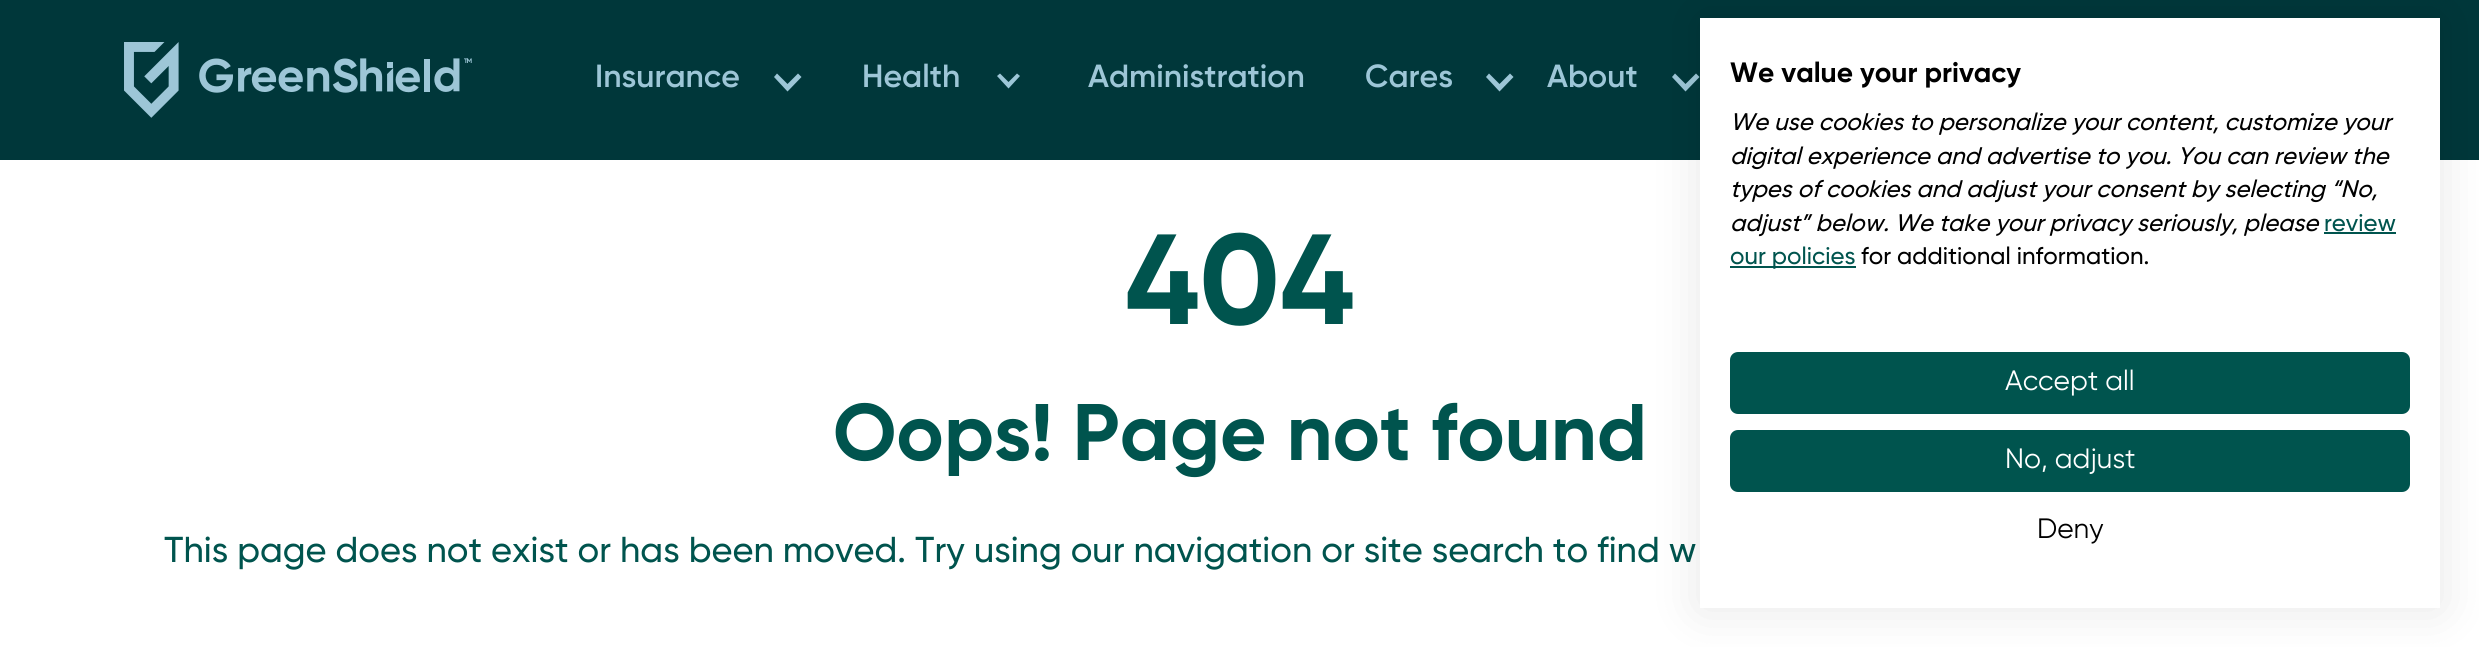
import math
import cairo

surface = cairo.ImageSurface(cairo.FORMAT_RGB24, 2479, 647)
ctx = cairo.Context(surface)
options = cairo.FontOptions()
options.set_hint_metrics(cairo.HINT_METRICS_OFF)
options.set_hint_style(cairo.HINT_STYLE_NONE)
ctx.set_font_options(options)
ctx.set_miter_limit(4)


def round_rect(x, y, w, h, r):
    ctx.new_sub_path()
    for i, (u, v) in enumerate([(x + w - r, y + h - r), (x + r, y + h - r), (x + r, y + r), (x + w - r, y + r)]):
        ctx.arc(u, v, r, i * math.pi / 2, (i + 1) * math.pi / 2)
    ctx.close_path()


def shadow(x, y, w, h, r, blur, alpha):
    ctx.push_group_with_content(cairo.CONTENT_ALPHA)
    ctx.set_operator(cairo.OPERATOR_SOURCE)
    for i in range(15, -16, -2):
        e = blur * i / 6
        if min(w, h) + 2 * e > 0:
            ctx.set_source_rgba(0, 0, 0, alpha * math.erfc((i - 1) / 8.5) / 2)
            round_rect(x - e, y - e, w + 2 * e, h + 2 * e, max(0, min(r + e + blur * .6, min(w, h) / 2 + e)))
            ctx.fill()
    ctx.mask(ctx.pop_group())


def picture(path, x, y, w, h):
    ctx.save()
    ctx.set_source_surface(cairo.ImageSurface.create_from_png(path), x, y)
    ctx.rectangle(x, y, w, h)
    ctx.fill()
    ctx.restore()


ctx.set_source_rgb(1, 1, 1)
ctx.paint()
ctx.set_source_rgb(0, 0.216, 0.227)
ctx.rectangle(0, 0, 2479, 160)
ctx.fill()
picture("img1.png", 124, 42, 348, 76)
ctx.select_font_face("Gilroy SemiBold")
ctx.set_font_size(32)
ctx.set_source_rgb(0.616, 0.776, 0.843)
ctx.move_to(595, 87)
ctx.show_text("Insurance")
ctx.new_path()
ctx.move_to(798, 73.5)
ctx.line_to(787.5, 84)
ctx.line_to(777, 73.5)
ctx.line_to(774, 77)
ctx.line_to(787.5, 91.5)
ctx.line_to(801.5, 77)
ctx.close_path()
ctx.fill()
ctx.move_to(862, 87)
ctx.show_text("Health")
ctx.new_path()
ctx.move_to(1017, 73.5)
ctx.line_to(1008.5, 82)
ctx.line_to(1000, 73.5)
ctx.line_to(997, 76)
ctx.line_to(1008.5, 88.5)
ctx.line_to(1020, 76)
ctx.close_path()
ctx.fill()
ctx.move_to(1088, 87)
ctx.show_text("Administration")
ctx.move_to(1365, 87)
ctx.show_text("Cares")
ctx.new_path()
ctx.move_to(1510, 73.5)
ctx.line_to(1499.5, 84)
ctx.line_to(1489, 73.5)
ctx.line_to(1486, 77)
ctx.line_to(1499.5, 91.5)
ctx.line_to(1513.5, 77)
ctx.close_path()
ctx.fill()
ctx.move_to(1547, 87)
ctx.show_text("About")
ctx.new_path()
ctx.move_to(1696, 73.5)
ctx.line_to(1685.5, 84)
ctx.line_to(1675, 73.5)
ctx.line_to(1672, 77)
ctx.line_to(1685.5, 91.5)
ctx.line_to(1699.5, 77)
ctx.close_path()
ctx.fill()
ctx.select_font_face("Gilroy", cairo.FONT_SLANT_NORMAL, cairo.FONT_WEIGHT_BOLD)
ctx.set_font_size(128)
ctx.set_source_rgb(0, 0.329, 0.306)
ctx.move_to(1125, 324)
ctx.show_text("404")
ctx.set_font_size(80)
ctx.move_to(833, 460)
ctx.show_text("Oops! Page not found")
ctx.select_font_face("Gilroy Medium")
ctx.set_font_size(36)
ctx.move_to(164, 562)
ctx.show_text("This page does not exist or has been moved. Try using our navigation or site search to find w")
ctx.set_source_rgb(0, 0, 0)
shadow(1700, 18, 740, 590, 0, 24, 0.1)
ctx.set_source_rgb(1, 1, 1)
ctx.rectangle(1700, 18, 740, 590)
ctx.fill()
ctx.select_font_face("Gilroy", cairo.FONT_SLANT_NORMAL, cairo.FONT_WEIGHT_BOLD)
ctx.set_font_size(28)
ctx.set_source_rgb(0, 0, 0)
ctx.move_to(1730, 82)
ctx.show_text("We value your privacy")
ctx.select_font_face("Gilroy Medium", cairo.FONT_SLANT_ITALIC)
ctx.set_font_size(24)
ctx.move_to(1730, 130)
ctx.show_text("We use cookies to personalize your content, customize your")
ctx.move_to(1730, 164)
ctx.show_text("digital experience and advertise to you. You can review the")
ctx.move_to(1730, 197)
ctx.show_text("types of cookies and adjust your consent by selecting “No,")
ctx.move_to(1730, 231)
ctx.show_text("adjust” below. We take your privacy seriously, please")
ctx.select_font_face("Gilroy Medium")
ctx.set_source_rgb(0, 0.329, 0.306)
ctx.move_to(2324, 231)
ctx.show_text("review")
ctx.rectangle(2324, 232, 72, 2)
ctx.fill()
ctx.rectangle(1730, 266, 126, 2)
ctx.fill()
ctx.move_to(1730, 264)
ctx.show_text("our policies")
ctx.set_source_rgb(0, 0, 0)
ctx.move_to(1861, 264)
ctx.show_text("for additional information.")
ctx.set_source_rgb(0, 0.329, 0.306)
round_rect(1731, 353, 678, 60, 7)
ctx.fill_preserve()
ctx.stroke()
ctx.select_font_face("Gilroy")
ctx.set_font_size(28)
ctx.set_source_rgb(1, 1, 1)
ctx.move_to(2005, 390)
ctx.show_text("Accept all")
ctx.set_source_rgb(0, 0.329, 0.306)
round_rect(1731, 431, 678, 60, 7)
ctx.fill_preserve()
ctx.stroke()
ctx.set_source_rgb(1, 1, 1)
ctx.move_to(2005, 468)
ctx.show_text("No, adjust")
ctx.set_source_rgb(0, 0, 0)
ctx.move_to(2037, 538)
ctx.show_text("Deny")
surface.write_to_png("page.png")
